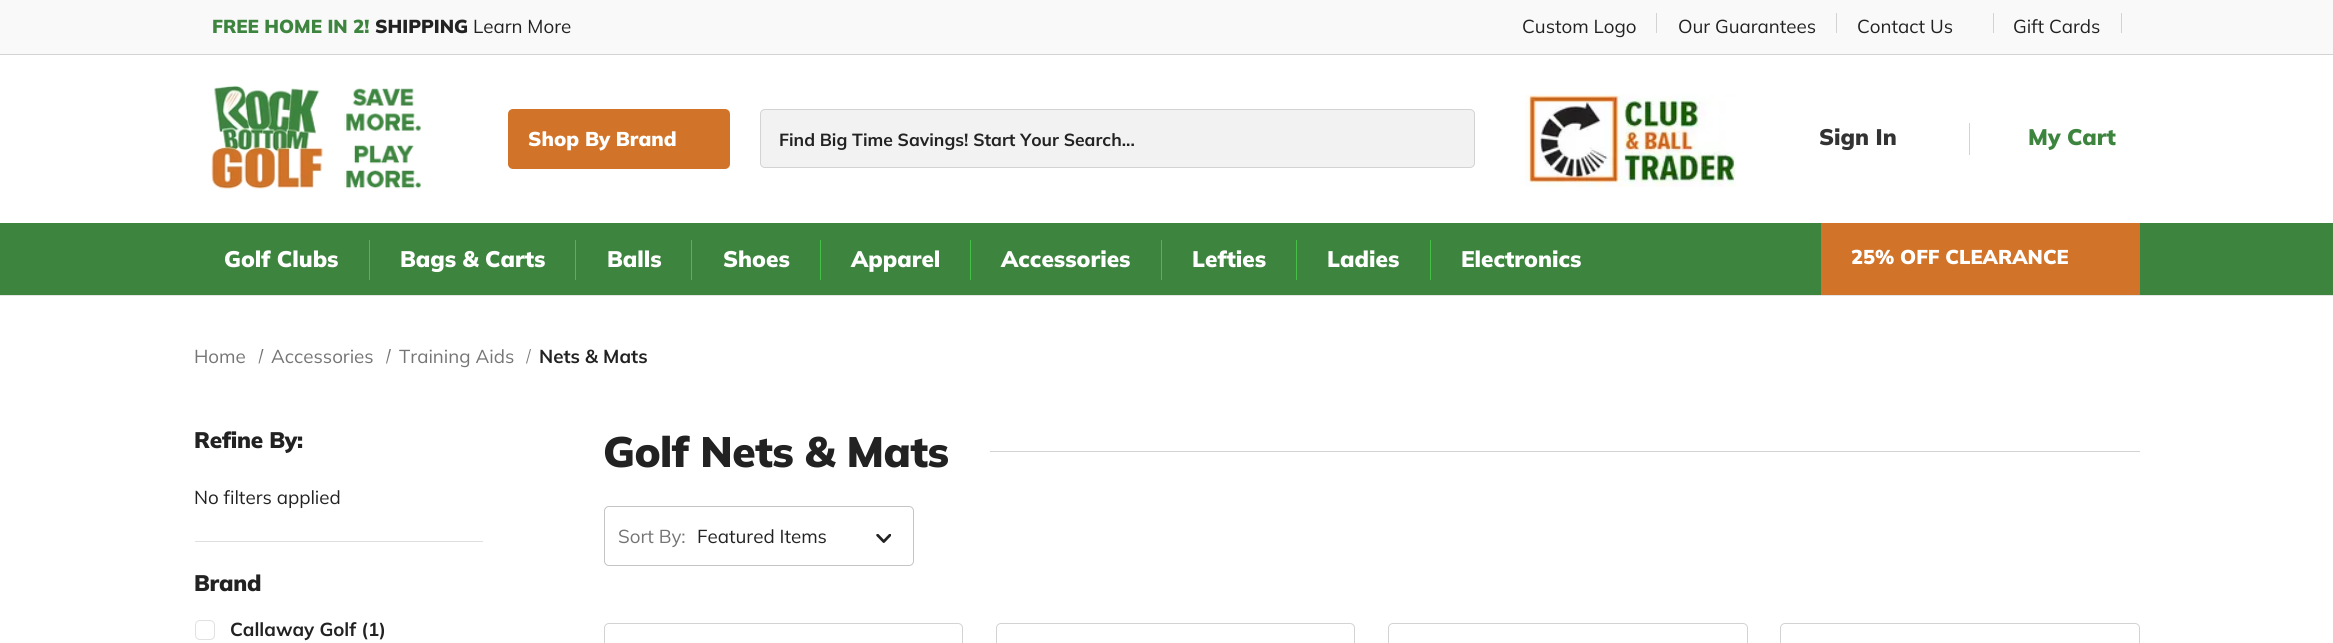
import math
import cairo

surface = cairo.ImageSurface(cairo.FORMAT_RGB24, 2333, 643)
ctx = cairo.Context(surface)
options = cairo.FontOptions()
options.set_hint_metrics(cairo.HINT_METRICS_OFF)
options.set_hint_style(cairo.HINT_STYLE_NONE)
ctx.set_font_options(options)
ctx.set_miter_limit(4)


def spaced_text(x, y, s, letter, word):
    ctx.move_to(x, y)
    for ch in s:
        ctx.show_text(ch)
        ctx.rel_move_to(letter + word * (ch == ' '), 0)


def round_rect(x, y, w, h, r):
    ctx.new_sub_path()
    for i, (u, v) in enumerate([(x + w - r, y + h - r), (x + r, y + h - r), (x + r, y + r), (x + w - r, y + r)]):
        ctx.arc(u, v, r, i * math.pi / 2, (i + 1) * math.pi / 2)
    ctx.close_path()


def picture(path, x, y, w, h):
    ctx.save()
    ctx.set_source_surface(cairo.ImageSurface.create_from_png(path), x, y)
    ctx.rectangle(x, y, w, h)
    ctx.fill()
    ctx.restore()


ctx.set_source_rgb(1, 1, 1)
ctx.paint()
ctx.set_source_rgb(0.898, 0.898, 0.898)
ctx.rectangle(0, 295, 2333, 1)
ctx.fill()
ctx.set_source_rgb(0.976, 0.976, 0.976)
ctx.rectangle(0, 0, 2333, 54)
ctx.fill()
ctx.set_source_rgb(0.827, 0.827, 0.827)
ctx.rectangle(0, 54, 2333, 1)
ctx.fill()
ctx.select_font_face("Mulish Black")
ctx.set_font_size(18.75)
ctx.set_source_rgb(0.239, 0.522, 0.247)
ctx.move_to(212, 33)
ctx.show_text("FREE HOME IN 2!")
ctx.set_source_rgb(0.133, 0.133, 0.133)
ctx.move_to(375, 33)
ctx.show_text("SHIPPING")
ctx.select_font_face("Mulish")
ctx.move_to(473, 33)
ctx.show_text("Learn More")
ctx.move_to(1522, 33)
ctx.show_text("Custom Logo")
ctx.set_source_rgb(0.827, 0.827, 0.827)
ctx.rectangle(1656, 13, 1, 20)
ctx.fill()
ctx.set_source_rgb(0.133, 0.133, 0.133)
ctx.move_to(1678, 33)
ctx.show_text("Our Guarantees")
ctx.set_source_rgb(0.827, 0.827, 0.827)
ctx.rectangle(1836, 13, 1, 20)
ctx.fill()
ctx.set_source_rgb(0.133, 0.133, 0.133)
ctx.move_to(1857, 33)
ctx.show_text("Contact Us")
ctx.set_source_rgb(0.827, 0.827, 0.827)
ctx.rectangle(1993, 13, 1, 20)
ctx.fill()
ctx.set_source_rgb(0.133, 0.133, 0.133)
ctx.move_to(2013, 33)
ctx.show_text("Gift Cards")
ctx.set_source_rgb(0.827, 0.827, 0.827)
ctx.rectangle(2121, 13, 1, 20)
ctx.fill()
picture("img1.png", 211, 85, 210, 104)
ctx.set_source_rgb(0.82, 0.451, 0.161)
round_rect(508, 109, 222, 60, 5)
ctx.fill()
ctx.select_font_face("Mulish Black")
ctx.set_font_size(20)
ctx.set_source_rgb(1, 1, 1)
ctx.move_to(528, 146)
ctx.show_text("Shop By Brand")
ctx.set_source_rgb(0.949, 0.949, 0.949)
round_rect(760.5, 109.5, 714, 58, 4.5)
ctx.fill_preserve()
ctx.set_source_rgb(0.827, 0.827, 0.827)
ctx.set_line_width(1)
ctx.stroke()
ctx.select_font_face("Mulish", cairo.FONT_SLANT_NORMAL, cairo.FONT_WEIGHT_BOLD)
ctx.set_font_size(17.5)
ctx.set_source_rgb(0.133, 0.133, 0.133)
ctx.move_to(779, 146)
ctx.show_text("Find Big Time Savings! Start Your Search...")
picture("img2.png", 1525, 94, 211, 93)
ctx.select_font_face("Mulish Black")
ctx.set_font_size(22.5)
ctx.set_source_rgb(0.2, 0.2, 0.2)
ctx.move_to(1819, 145)
ctx.show_text("Sign In")
ctx.set_source_rgb(0.827, 0.827, 0.827)
ctx.rectangle(1969, 123, 1, 32)
ctx.fill()
ctx.set_source_rgb(0.239, 0.522, 0.247)
ctx.move_to(2028, 145)
ctx.show_text("My Cart")
ctx.rectangle(0, 223, 2333, 72)
ctx.fill()
ctx.set_source_rgb(1, 1, 1)
ctx.move_to(224, 267)
ctx.show_text("Golf Clubs")
ctx.set_source_rgb(0.275, 0.749, 0.286)
ctx.rectangle(369, 240, 1, 40)
ctx.fill()
ctx.set_source_rgb(1, 1, 1)
ctx.move_to(400, 267)
ctx.show_text("Bags & Carts")
ctx.set_source_rgb(0.275, 0.749, 0.286)
ctx.rectangle(575, 240, 1, 40)
ctx.fill()
ctx.set_source_rgb(1, 1, 1)
ctx.move_to(607, 267)
ctx.show_text("Balls")
ctx.set_source_rgb(0.275, 0.749, 0.286)
ctx.rectangle(691, 240, 1, 40)
ctx.fill()
ctx.set_source_rgb(1, 1, 1)
ctx.move_to(723, 267)
ctx.show_text("Shoes")
ctx.set_source_rgb(0.275, 0.749, 0.286)
ctx.rectangle(820, 240, 1, 40)
ctx.fill()
ctx.set_source_rgb(1, 1, 1)
ctx.move_to(851, 267)
ctx.show_text("Apparel")
ctx.set_source_rgb(0.275, 0.749, 0.286)
ctx.rectangle(970, 240, 1, 40)
ctx.fill()
ctx.set_source_rgb(1, 1, 1)
ctx.move_to(1001, 267)
ctx.show_text("Accessories")
ctx.set_source_rgb(0.275, 0.749, 0.286)
ctx.rectangle(1161, 240, 1, 40)
ctx.fill()
ctx.set_source_rgb(1, 1, 1)
ctx.move_to(1192, 267)
ctx.show_text("Lefties")
ctx.set_source_rgb(0.275, 0.749, 0.286)
ctx.rectangle(1296, 240, 1, 40)
ctx.fill()
ctx.set_source_rgb(1, 1, 1)
ctx.move_to(1327, 267)
ctx.show_text("Ladies")
ctx.set_source_rgb(0.275, 0.749, 0.286)
ctx.rectangle(1430, 240, 1, 40)
ctx.fill()
ctx.set_source_rgb(1, 1, 1)
ctx.move_to(1461, 267)
ctx.show_text("Electronics")
ctx.set_source_rgb(0.82, 0.451, 0.161)
ctx.rectangle(1821, 223, 319, 72)
ctx.fill()
ctx.set_font_size(20)
ctx.set_source_rgb(1, 1, 1)
ctx.move_to(1851, 264)
ctx.show_text("25% OFF CLEARANCE")
ctx.select_font_face("Mulish")
ctx.set_font_size(18.75)
ctx.set_source_rgb(0.459, 0.459, 0.459)
ctx.move_to(194, 363)
ctx.show_text("Home")
ctx.new_path()
ctx.move_to(262, 349)
ctx.line_to(263.5, 349)
ctx.line_to(259.5, 363.5)
ctx.line_to(258.5, 363.5)
ctx.close_path()
ctx.fill()
ctx.move_to(271, 363)
ctx.show_text("Accessories")
ctx.new_path()
ctx.move_to(389.5, 349)
ctx.line_to(391, 349)
ctx.line_to(387, 363.5)
ctx.line_to(386, 363.5)
ctx.close_path()
ctx.fill()
ctx.move_to(399, 363)
ctx.show_text("Training Aids")
ctx.new_path()
ctx.move_to(530, 349)
ctx.line_to(531, 349)
ctx.line_to(527, 363.5)
ctx.line_to(526, 363.5)
ctx.close_path()
ctx.fill()
ctx.select_font_face("Mulish", cairo.FONT_SLANT_NORMAL, cairo.FONT_WEIGHT_BOLD)
ctx.set_source_rgb(0.133, 0.133, 0.133)
ctx.move_to(539, 363)
ctx.show_text("Nets & Mats")
ctx.set_source_rgb(0.875, 0.875, 0.875)
ctx.rectangle(195, 541, 288, 1)
ctx.fill()
ctx.select_font_face("Mulish Black")
ctx.set_font_size(22.5)
ctx.set_source_rgb(0.133, 0.133, 0.133)
spaced_text(194, 448, "Refine By:", -0.25, 0)
ctx.select_font_face("Mulish")
ctx.set_font_size(18.75)
ctx.move_to(194, 504)
ctx.show_text("No filters applied")
ctx.select_font_face("Mulish Black")
ctx.set_font_size(22.5)
spaced_text(194, 591, "Brand", -0.25, 0)
round_rect(195.5, 620.5, 19, 19, 4.5)
ctx.set_source_rgb(0.882, 0.882, 0.882)
ctx.stroke()
ctx.select_font_face("Mulish", cairo.FONT_SLANT_NORMAL, cairo.FONT_WEIGHT_BOLD)
ctx.set_font_size(18.75)
ctx.set_source_rgb(0.133, 0.133, 0.133)
ctx.move_to(230, 636)
ctx.show_text("Callaway Golf (1)")
ctx.select_font_face("Mulish Black")
ctx.set_font_size(42.5)
spaced_text(603, 467, "Golf Nets & Mats", -0.5, 0)
ctx.set_source_rgb(0.827, 0.827, 0.827)
ctx.rectangle(990, 451, 1150, 1)
ctx.fill()
round_rect(604.5, 506.5, 309, 59, 4.5)
ctx.set_source_rgb(0.769, 0.769, 0.769)
ctx.stroke()
ctx.select_font_face("Mulish")
ctx.set_font_size(18.75)
ctx.set_source_rgb(0.459, 0.459, 0.459)
ctx.move_to(618, 543)
ctx.show_text("Sort By:")
picture("img3.png", 876, 534, 15, 9)
ctx.set_source_rgb(0.133, 0.133, 0.133)
ctx.move_to(697, 543)
ctx.show_text("Featured Items")
round_rect(604.5, 623.5, 358, 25, 4.5)
ctx.set_source_rgb(0.827, 0.827, 0.827)
ctx.stroke()
round_rect(996.5, 623.5, 358, 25, 4.5)
ctx.stroke()
round_rect(1388.5, 623.5, 359, 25, 4.5)
ctx.stroke()
round_rect(1780.5, 623.5, 359, 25, 4.5)
ctx.stroke()
surface.write_to_png("page.png")
